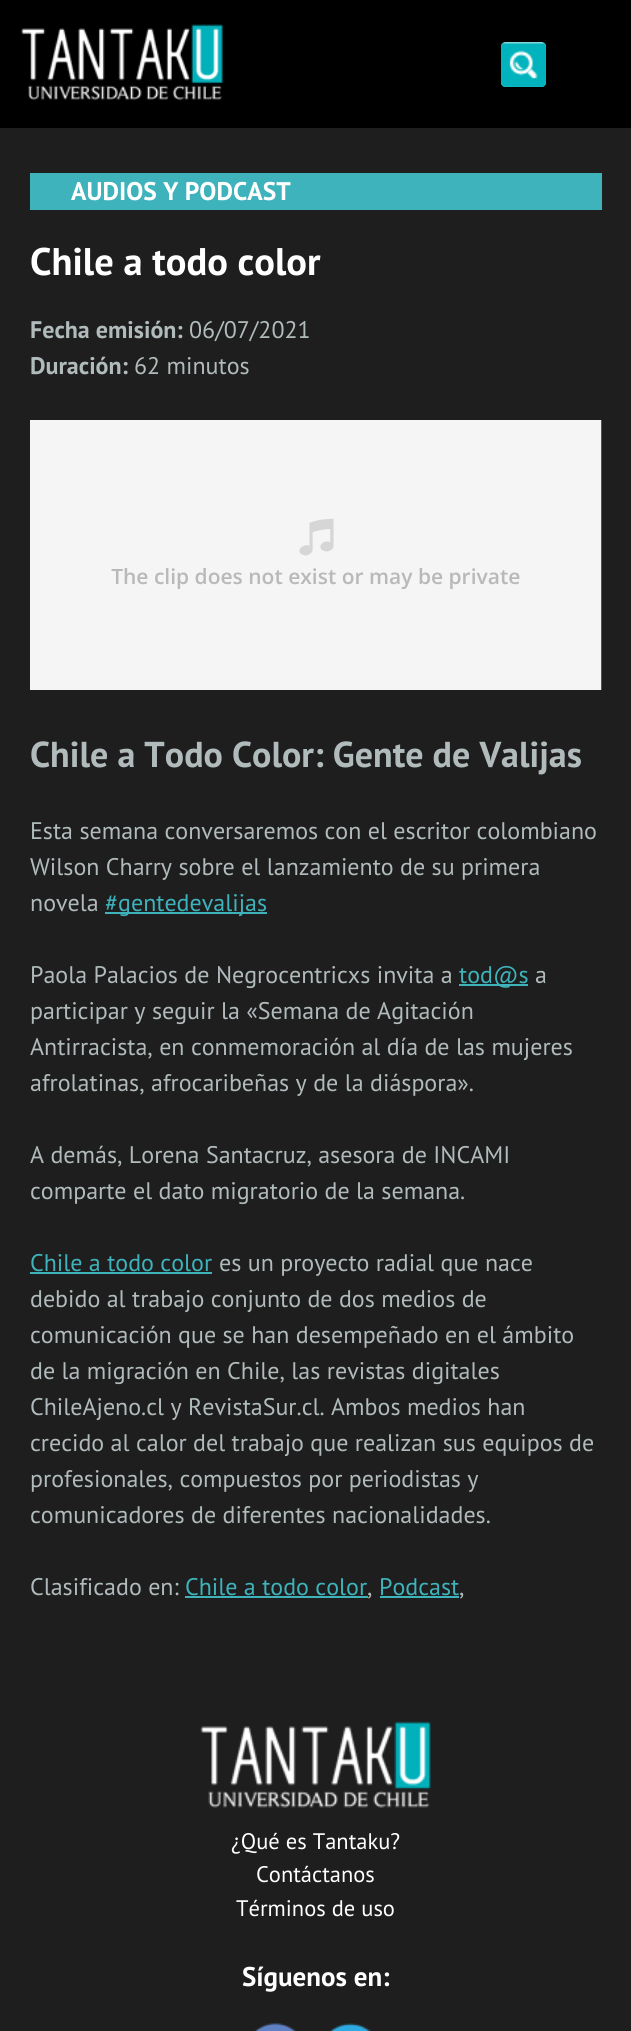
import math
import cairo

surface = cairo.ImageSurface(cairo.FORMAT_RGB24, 631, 2031)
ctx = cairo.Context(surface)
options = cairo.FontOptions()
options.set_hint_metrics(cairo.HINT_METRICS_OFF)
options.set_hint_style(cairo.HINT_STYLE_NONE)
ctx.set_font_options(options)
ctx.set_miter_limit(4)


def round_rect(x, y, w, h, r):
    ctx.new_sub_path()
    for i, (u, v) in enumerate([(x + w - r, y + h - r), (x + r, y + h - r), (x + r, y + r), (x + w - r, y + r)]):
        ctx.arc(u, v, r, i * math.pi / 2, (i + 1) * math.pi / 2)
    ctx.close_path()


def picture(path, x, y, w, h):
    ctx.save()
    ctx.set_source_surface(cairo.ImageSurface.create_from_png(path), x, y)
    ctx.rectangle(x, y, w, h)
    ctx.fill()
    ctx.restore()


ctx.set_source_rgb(0.118, 0.118, 0.118)
ctx.paint()
ctx.set_source_rgb(0, 0, 0)
ctx.rectangle(0, 0, 631, 128)
ctx.fill()
picture("img1.png", 21, 24, 203, 77)
ctx.set_source_rgb(1, 1, 1)
round_rect(501, 42, 45, 45, 5)
ctx.fill()
picture("img2.png", 501, 42, 45, 45)
ctx.set_source_rgb(0.243, 0.702, 0.737)
ctx.rectangle(30, 173, 572, 37)
ctx.fill()
ctx.select_font_face("PT Sans", cairo.FONT_SLANT_NORMAL, cairo.FONT_WEIGHT_BOLD)
ctx.set_font_size(25.5)
ctx.set_source_rgb(1, 1, 1)
ctx.move_to(71, 200)
ctx.show_text("AUDIOS Y PODCAST")
ctx.set_font_size(38.5)
ctx.move_to(30, 275)
ctx.show_text("Chile a todo color")
ctx.set_font_size(24)
ctx.set_source_rgb(0.694, 0.733, 0.737)
ctx.move_to(30, 338)
ctx.show_text("Fecha emisión:")
ctx.select_font_face("PT Sans")
ctx.move_to(189, 338)
ctx.show_text("06/07/2021")
ctx.select_font_face("PT Sans", cairo.FONT_SLANT_NORMAL, cairo.FONT_WEIGHT_BOLD)
ctx.move_to(30, 374)
ctx.show_text("Duración:")
ctx.select_font_face("PT Sans")
ctx.move_to(134, 374)
ctx.show_text("62 minutos")
picture("img3.png", 30, 420, 572, 270)
ctx.select_font_face("PT Sans", cairo.FONT_SLANT_NORMAL, cairo.FONT_WEIGHT_BOLD)
ctx.set_font_size(36)
ctx.move_to(30, 767)
ctx.show_text("Chile a Todo Color: Gente de Valijas")
ctx.select_font_face("PT Sans")
ctx.set_font_size(24)
ctx.move_to(30, 839)
ctx.show_text("Esta semana conversaremos con el escritor colombiano")
ctx.move_to(30, 875)
ctx.show_text("Wilson Charry sobre el lanzamiento de su primera")
ctx.move_to(30, 911)
ctx.show_text("novela")
ctx.set_source_rgb(0.243, 0.702, 0.737)
ctx.rectangle(105, 912, 162, 2)
ctx.fill()
ctx.move_to(105, 911)
ctx.show_text("#gentedevalijas")
ctx.set_source_rgb(0.694, 0.733, 0.737)
ctx.move_to(30, 983)
ctx.show_text("Paola Palacios de Negrocentricxs invita a")
ctx.set_source_rgb(0.243, 0.702, 0.737)
ctx.rectangle(459, 984, 69, 2)
ctx.fill()
ctx.move_to(459, 983)
ctx.show_text("tod@s")
ctx.set_source_rgb(0.694, 0.733, 0.737)
ctx.move_to(535, 983)
ctx.show_text("a")
ctx.move_to(30, 1019)
ctx.show_text("participar y seguir la «Semana de Agitación")
ctx.move_to(30, 1055)
ctx.show_text("Antirracista, en conmemoración al día de las mujeres")
ctx.move_to(30, 1091)
ctx.show_text("afrolatinas, afrocaribeñas y de la diáspora».")
ctx.move_to(30, 1163)
ctx.show_text("A demás, Lorena Santacruz, asesora de INCAMI")
ctx.move_to(30, 1199)
ctx.show_text("comparte el dato migratorio de la semana.")
ctx.set_source_rgb(0.243, 0.702, 0.737)
ctx.move_to(30, 1271)
ctx.show_text("Chile a todo color")
ctx.rectangle(30, 1272, 182, 2)
ctx.fill()
ctx.set_source_rgb(0.694, 0.733, 0.737)
ctx.move_to(219, 1271)
ctx.show_text("es un proyecto radial que nace")
ctx.move_to(30, 1307)
ctx.show_text("debido al trabajo conjunto de dos medios de")
ctx.move_to(30, 1343)
ctx.show_text("comunicación que se han desempeñado en el ámbito")
ctx.move_to(30, 1379)
ctx.show_text("de la migración en Chile, las revistas digitales")
ctx.move_to(30, 1415)
ctx.show_text("ChileAjeno.cl y RevistaSur.cl. Ambos medios han")
ctx.move_to(30, 1451)
ctx.show_text("crecido al calor del trabajo que realizan sus equipos de")
ctx.move_to(30, 1487)
ctx.show_text("profesionales, compuestos por periodistas y")
ctx.move_to(30, 1523)
ctx.show_text("comunicadores de diferentes nacionalidades.")
ctx.move_to(30, 1595)
ctx.show_text("Clasificado en:")
ctx.set_source_rgb(0.243, 0.702, 0.737)
ctx.move_to(185, 1595)
ctx.show_text("Chile a todo color")
ctx.set_source_rgb(0.694, 0.733, 0.737)
ctx.move_to(367, 1595)
ctx.show_text(",")
ctx.set_source_rgb(0.243, 0.702, 0.737)
ctx.rectangle(185, 1596, 183, 2)
ctx.fill()
ctx.rectangle(380, 1596, 79, 2)
ctx.fill()
ctx.move_to(379, 1595)
ctx.show_text("Podcast")
ctx.set_source_rgb(0.694, 0.733, 0.737)
ctx.move_to(459, 1595)
ctx.show_text(",")
picture("img4.png", 200, 1721, 231, 87)
ctx.set_font_size(22.5)
ctx.set_source_rgb(1, 1, 1)
ctx.move_to(231, 1849)
ctx.show_text("¿Qué es Tantaku?")
ctx.move_to(256, 1882)
ctx.show_text("Contáctanos")
ctx.move_to(236, 1916)
ctx.show_text("Términos de uso")
ctx.select_font_face("PT Sans", cairo.FONT_SLANT_NORMAL, cairo.FONT_WEIGHT_BOLD)
ctx.set_font_size(27)
ctx.move_to(242, 1986)
ctx.show_text("Síguenos en:")
picture("img5.png", 254, 2023, 42, 8)
picture("img6.png", 330, 2023, 41, 8)
surface.write_to_png("page.png")
